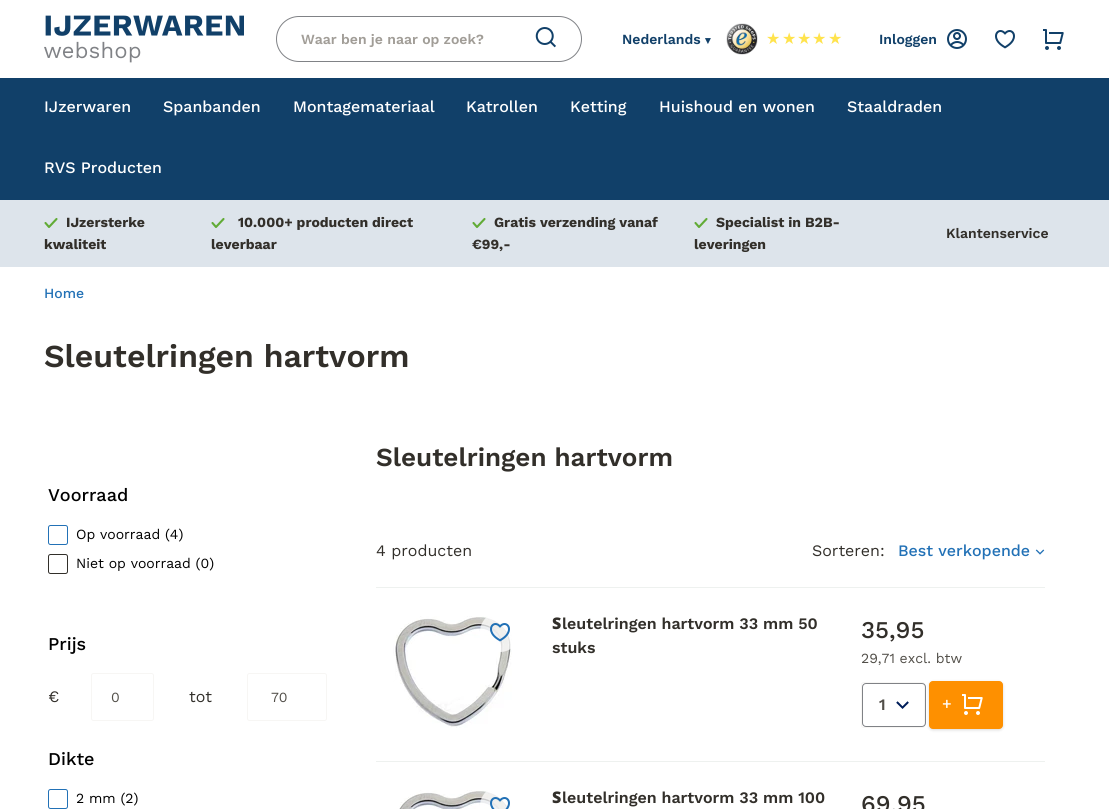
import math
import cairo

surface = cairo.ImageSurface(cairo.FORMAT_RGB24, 1109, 809)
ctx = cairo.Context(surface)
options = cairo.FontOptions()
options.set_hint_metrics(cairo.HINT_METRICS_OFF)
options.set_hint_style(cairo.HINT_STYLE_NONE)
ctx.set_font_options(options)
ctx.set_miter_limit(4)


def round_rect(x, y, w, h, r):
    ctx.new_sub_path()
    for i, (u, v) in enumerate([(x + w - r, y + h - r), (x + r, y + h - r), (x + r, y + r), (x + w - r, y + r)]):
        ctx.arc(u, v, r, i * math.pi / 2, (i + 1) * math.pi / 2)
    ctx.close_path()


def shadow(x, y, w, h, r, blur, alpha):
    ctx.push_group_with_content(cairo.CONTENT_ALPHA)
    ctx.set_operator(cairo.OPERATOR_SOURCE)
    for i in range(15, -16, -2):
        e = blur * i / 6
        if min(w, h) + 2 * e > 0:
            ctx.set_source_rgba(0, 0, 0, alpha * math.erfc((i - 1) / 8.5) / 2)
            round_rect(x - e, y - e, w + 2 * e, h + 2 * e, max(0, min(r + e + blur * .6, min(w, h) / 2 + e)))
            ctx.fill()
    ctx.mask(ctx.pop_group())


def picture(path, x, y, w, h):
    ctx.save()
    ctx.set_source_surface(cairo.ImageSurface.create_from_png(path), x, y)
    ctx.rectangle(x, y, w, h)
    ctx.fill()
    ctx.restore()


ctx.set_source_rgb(1, 1, 1)
ctx.paint()
picture("img1.png", 44, 15, 200, 48)
round_rect(276.5, 16.5, 305, 45, 22.5)
ctx.set_source_rgb(0.502, 0.51, 0.525)
ctx.set_line_width(1)
ctx.stroke()
ctx.select_font_face("Work Sans SemiBold")
ctx.set_font_size(14)
ctx.set_source_rgb(0.631, 0.616, 0.592)
ctx.move_to(301, 44)
ctx.show_text("Waar ben je naar op zoek?")
picture("img2.png", 535, 27, 21, 21)
ctx.set_source_rgb(0.067, 0.251, 0.412)
ctx.move_to(622, 44)
ctx.show_text("Nederlands")
ctx.select_font_face("DejaVu Sans", cairo.FONT_SLANT_NORMAL, cairo.FONT_WEIGHT_BOLD)
ctx.set_font_size(11)
ctx.move_to(705, 44)
ctx.show_text("▾")
picture("img3.png", 726, 23, 32, 32)
ctx.select_font_face("DejaVu Sans")
ctx.set_font_size(16)
ctx.set_source_rgb(1, 0.89, 0.302)
ctx.move_to(766, 44)
ctx.show_text("★")
ctx.move_to(782, 44)
ctx.show_text("★")
ctx.move_to(797, 44)
ctx.show_text("★")
ctx.move_to(812, 44)
ctx.show_text("★")
ctx.move_to(828, 44)
ctx.show_text("★")
ctx.select_font_face("Work Sans SemiBold")
ctx.set_font_size(14)
ctx.set_source_rgb(0.067, 0.251, 0.412)
ctx.move_to(879, 44)
ctx.show_text("Inloggen")
picture("img4.png", 947, 29, 20, 20)
picture("img5.png", 995, 30, 20, 19)
picture("img6.png", 1043, 29, 21, 21)
ctx.rectangle(0, 78, 1109, 122)
ctx.fill()
ctx.select_font_face("Work Sans Medium")
ctx.set_font_size(16)
ctx.set_source_rgb(1, 1, 1)
ctx.move_to(44, 112)
ctx.show_text("IJzerwaren")
ctx.move_to(163, 112)
ctx.show_text("Spanbanden")
ctx.move_to(293, 112)
ctx.show_text("Montagemateriaal")
ctx.move_to(466, 112)
ctx.show_text("Katrollen")
ctx.move_to(570, 112)
ctx.show_text("Ketting")
ctx.move_to(659, 112)
ctx.show_text("Huishoud en wonen")
ctx.move_to(847, 112)
ctx.show_text("Staaldraden")
ctx.move_to(44, 173)
ctx.show_text("RVS Producten")
ctx.set_source_rgb(0.867, 0.894, 0.918)
ctx.rectangle(0, 200, 1109, 67)
ctx.fill()
ctx.new_path()
ctx.move_to(45.5, 223)
ctx.line_to(49, 227)
ctx.line_to(56.5, 219)
ctx.set_source_rgb(0.38, 0.671, 0.212)
ctx.set_line_width(2.1)
ctx.set_line_cap(cairo.LINE_CAP_ROUND)
ctx.set_line_join(cairo.LINE_JOIN_ROUND)
ctx.stroke()
ctx.select_font_face("Work Sans", cairo.FONT_SLANT_NORMAL, cairo.FONT_WEIGHT_BOLD)
ctx.set_font_size(14)
ctx.set_source_rgb(0.196, 0.184, 0.165)
ctx.move_to(66, 227)
ctx.show_text("IJzersterke")
ctx.move_to(44, 249)
ctx.show_text("kwaliteit")
ctx.new_path()
ctx.move_to(212.5, 223)
ctx.line_to(216, 227)
ctx.line_to(223.5, 219)
ctx.set_source_rgb(0.38, 0.671, 0.212)
ctx.stroke()
ctx.set_source_rgb(0.196, 0.184, 0.165)
ctx.move_to(238, 227)
ctx.show_text("10.000+ producten direct")
ctx.move_to(211, 249)
ctx.show_text("leverbaar")
ctx.new_path()
ctx.move_to(473.5, 223)
ctx.line_to(477, 227)
ctx.line_to(484.5, 219)
ctx.set_source_rgb(0.38, 0.671, 0.212)
ctx.stroke()
ctx.set_source_rgb(0.196, 0.184, 0.165)
ctx.move_to(494, 227)
ctx.show_text("Gratis verzending vanaf")
ctx.move_to(472, 249)
ctx.show_text("€99,-")
ctx.new_path()
ctx.move_to(695.5, 223)
ctx.line_to(699, 227)
ctx.line_to(706.5, 219)
ctx.set_source_rgb(0.38, 0.671, 0.212)
ctx.stroke()
ctx.set_source_rgb(0.196, 0.184, 0.165)
ctx.move_to(716, 227)
ctx.show_text("Specialist in B2B-")
ctx.move_to(694, 249)
ctx.show_text("leveringen")
ctx.select_font_face("Work Sans SemiBold")
ctx.move_to(946, 238)
ctx.show_text("Klantenservice")
ctx.select_font_face("Work Sans Medium")
ctx.set_source_rgb(0.133, 0.443, 0.714)
ctx.move_to(44, 298)
ctx.show_text("Home")
ctx.select_font_face("Work Sans SemiBold")
ctx.set_font_size(32)
ctx.set_source_rgb(0.196, 0.184, 0.165)
ctx.move_to(44, 367)
ctx.show_text("Sleutelringen hartvorm")
ctx.select_font_face("Work Sans Medium")
ctx.set_font_size(18)
ctx.set_source_rgb(0, 0, 0)
ctx.move_to(48, 501)
ctx.show_text("Voorraad")
round_rect(48.5, 525.5, 19, 19, 2)
ctx.set_source_rgb(0.133, 0.443, 0.714)
ctx.set_line_width(1)
ctx.set_line_cap(cairo.LINE_CAP_BUTT)
ctx.set_line_join(cairo.LINE_JOIN_MITER)
ctx.stroke()
ctx.select_font_face("Work Sans")
ctx.set_font_size(14)
ctx.set_source_rgb(0, 0, 0)
ctx.move_to(76, 539)
ctx.show_text("Op voorraad (4)")
round_rect(48.5, 554.5, 19, 19, 2)
ctx.set_source_rgb(0.196, 0.184, 0.165)
ctx.stroke()
ctx.set_source_rgb(0, 0, 0)
ctx.move_to(76, 568)
ctx.show_text("Niet op voorraad (0)")
ctx.select_font_face("Work Sans Medium")
ctx.set_font_size(18)
ctx.move_to(48, 650)
ctx.show_text("Prijs")
ctx.select_font_face("Work Sans")
ctx.set_font_size(16)
ctx.set_source_rgb(0.196, 0.184, 0.165)
ctx.move_to(48, 702)
ctx.show_text("€")
round_rect(91.5, 673.5, 62, 47, 2)
ctx.set_source_rgb(0.965, 0.961, 0.957)
ctx.stroke()
ctx.set_font_size(14)
ctx.set_source_rgb(0.322, 0.31, 0.286)
ctx.move_to(111, 702)
ctx.show_text("0")
ctx.set_font_size(16)
ctx.set_source_rgb(0.196, 0.184, 0.165)
ctx.move_to(189, 702)
ctx.show_text("tot")
round_rect(247.5, 673.5, 79, 47, 2)
ctx.set_source_rgb(0.965, 0.961, 0.957)
ctx.stroke()
ctx.set_font_size(14)
ctx.set_source_rgb(0.322, 0.31, 0.286)
ctx.move_to(271, 702)
ctx.show_text("70")
ctx.select_font_face("Work Sans Medium")
ctx.set_font_size(18)
ctx.set_source_rgb(0, 0, 0)
ctx.move_to(48, 765)
ctx.show_text("Dikte")
round_rect(48.5, 789.5, 19, 19, 2)
ctx.set_source_rgb(0.133, 0.443, 0.714)
ctx.stroke()
ctx.select_font_face("Work Sans")
ctx.set_font_size(14)
ctx.set_source_rgb(0, 0, 0)
ctx.move_to(76, 803)
ctx.show_text("2 mm (2)")
ctx.select_font_face("Work Sans SemiBold")
ctx.set_font_size(26)
ctx.set_source_rgb(0.196, 0.184, 0.165)
ctx.move_to(376, 466)
ctx.show_text("Sleutelringen hartvorm")
ctx.select_font_face("Work Sans")
ctx.set_font_size(16)
ctx.move_to(376, 556)
ctx.show_text("4 producten")
ctx.move_to(812, 556)
ctx.show_text("Sorteren:")
ctx.select_font_face("Work Sans Medium")
ctx.set_source_rgb(0.133, 0.443, 0.714)
ctx.move_to(898, 556)
ctx.show_text("Best verkopende")
picture("img7.png", 1035, 549, 10, 6)
ctx.set_source_rgb(0.933, 0.945, 0.937)
ctx.rectangle(376, 587, 669, 1)
ctx.fill()
picture("img9.png", 393, 616, 119, 112)
ctx.set_source_rgba(1, 1, 1, 0.72)
ctx.arc(500, 632, 20, 0, 2 * math.pi)
ctx.fill()
picture("img8.png", 490, 623, 20, 19)
ctx.select_font_face("Noto Sans Black")
ctx.set_source_rgb(0.196, 0.184, 0.165)
ctx.move_to(552, 629)
ctx.show_text("S")
ctx.select_font_face("Work Sans SemiBold")
ctx.move_to(562, 629)
ctx.show_text("leutelringen hartvorm 33 mm 50")
ctx.move_to(552, 653)
ctx.show_text("stuks")
ctx.select_font_face("Work Sans Medium")
ctx.set_font_size(24)
ctx.move_to(861, 638)
ctx.show_text("35,95")
ctx.select_font_face("Work Sans")
ctx.set_font_size(14)
ctx.set_source_rgb(0.322, 0.31, 0.286)
ctx.move_to(861, 663)
ctx.show_text("29,71 excl. btw")
ctx.set_source_rgb(0, 0, 0)
shadow(929, 682, 74, 48, 4, 1.5, 0.15)
round_rect(861.5, 682.5, 63, 45, 2)
ctx.set_source_rgb(0.965, 0.961, 0.957)
ctx.stroke()
picture("img10.png", 896, 701, 13, 8)
round_rect(862.5, 683.5, 63, 43, 3.5)
ctx.set_source_rgb(0.502, 0.51, 0.525)
ctx.stroke()
ctx.select_font_face("Work Sans SemiBold")
ctx.set_font_size(16)
ctx.set_source_rgb(0.322, 0.31, 0.286)
ctx.move_to(879, 710)
ctx.show_text("1")
ctx.set_source_rgb(0.996, 0.565, 0)
round_rect(929.5, 681.5, 73, 47, 3.5)
ctx.fill_preserve()
ctx.stroke()
picture("img11.png", 942, 694, 41, 21)
ctx.set_source_rgb(0.933, 0.945, 0.937)
ctx.rectangle(376, 761, 669, 1)
ctx.fill()
picture("img13.png", 399, 790, 112, 19)
ctx.set_source_rgba(1, 1, 1, 0.72)
ctx.arc(500, 806, 20, 0, 2 * math.pi)
ctx.fill()
picture("img12.png", 490, 797, 20, 12)
ctx.select_font_face("Noto Sans Black")
ctx.set_source_rgb(0.196, 0.184, 0.165)
ctx.move_to(552, 803)
ctx.show_text("S")
ctx.select_font_face("Work Sans SemiBold")
ctx.move_to(562, 803)
ctx.show_text("leutelringen hartvorm 33 mm 100")
ctx.select_font_face("Work Sans Medium")
ctx.set_font_size(24)
ctx.move_to(861, 812)
ctx.show_text("69,95")
surface.write_to_png("page.png")
